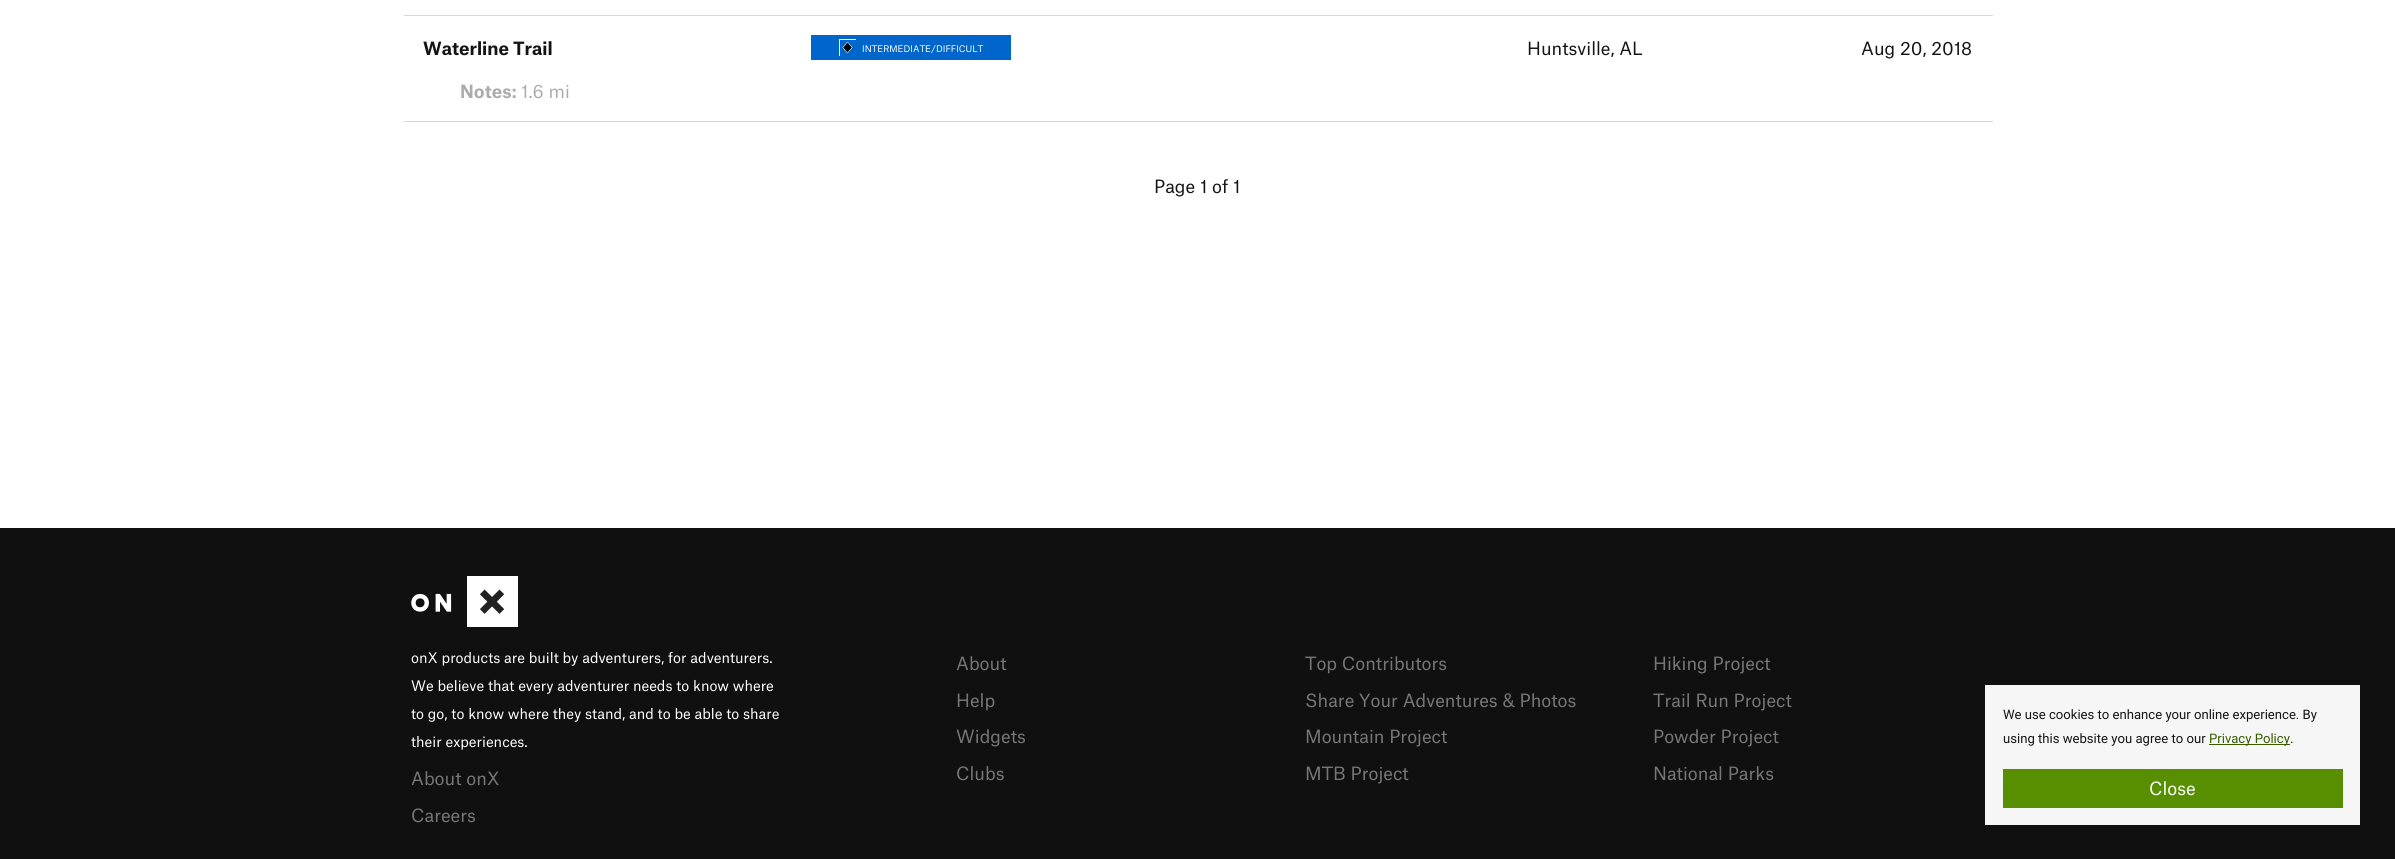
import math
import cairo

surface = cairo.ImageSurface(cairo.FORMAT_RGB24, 2395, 859)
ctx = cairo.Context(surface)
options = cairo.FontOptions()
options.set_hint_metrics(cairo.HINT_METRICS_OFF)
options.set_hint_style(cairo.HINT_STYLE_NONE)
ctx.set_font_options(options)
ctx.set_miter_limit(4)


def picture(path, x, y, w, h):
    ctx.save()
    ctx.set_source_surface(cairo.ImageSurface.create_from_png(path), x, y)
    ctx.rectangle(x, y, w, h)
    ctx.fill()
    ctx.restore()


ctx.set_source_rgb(1, 1, 1)
ctx.paint()
ctx.set_source_rgb(0.843, 0.843, 0.843)
ctx.rectangle(404, 15, 1589, 1)
ctx.fill()
ctx.select_font_face("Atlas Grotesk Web", cairo.FONT_SLANT_NORMAL, cairo.FONT_WEIGHT_BOLD)
ctx.set_font_size(17.5)
ctx.set_source_rgb(0.082, 0.082, 0.082)
ctx.move_to(423, 55)
ctx.show_text("Waterline Trail")
ctx.set_source_rgb(0, 0.4, 0.8)
ctx.rectangle(811, 35, 200, 25)
ctx.fill()
picture("img1.png", 839, 39, 17, 17)
ctx.select_font_face("Atlas Grotesk Web")
ctx.set_font_size(8.75)
ctx.set_source_rgb(1, 1, 1)
ctx.move_to(862, 52)
ctx.show_text("INTERMEDIATE/DIFFICULT")
ctx.set_font_size(17.5)
ctx.set_source_rgb(0.082, 0.082, 0.082)
ctx.move_to(1527, 55)
ctx.show_text("Huntsville, AL")
ctx.move_to(1861, 55)
ctx.show_text("Aug 20, 2018")
ctx.set_source_rgb(0.843, 0.843, 0.843)
ctx.rectangle(404, 121, 1589, 1)
ctx.fill()
ctx.select_font_face("Atlas Grotesk Web", cairo.FONT_SLANT_NORMAL, cairo.FONT_WEIGHT_BOLD)
ctx.set_source_rgb(0.675, 0.675, 0.675)
ctx.move_to(460, 98)
ctx.show_text("Notes:")
ctx.select_font_face("Atlas Grotesk Web")
ctx.move_to(521, 98)
ctx.show_text("1.6 mi")
ctx.set_source_rgb(0.082, 0.082, 0.082)
ctx.move_to(1154, 193)
ctx.show_text("Page 1 of 1")
ctx.set_source_rgb(0.063, 0.063, 0.063)
ctx.rectangle(0, 528, 2395, 331)
ctx.fill()
picture("img2.png", 411, 576, 107, 51)
ctx.set_font_size(14)
ctx.set_source_rgb(1, 1, 1)
ctx.move_to(411, 663)
ctx.show_text("onX products are built by adventurers, for adventurers.")
ctx.move_to(411, 691)
ctx.show_text("We believe that every adventurer needs to know where")
ctx.move_to(411, 719)
ctx.show_text("to go, to know where they stand, and to be able to share")
ctx.move_to(411, 747)
ctx.show_text("their experiences.")
ctx.set_font_size(17.5)
ctx.set_source_rgb(0.467, 0.467, 0.467)
ctx.move_to(411, 785)
ctx.show_text("About onX")
ctx.move_to(411, 822)
ctx.show_text("Careers")
ctx.move_to(956, 670)
ctx.show_text("About")
ctx.move_to(1305, 670)
ctx.show_text("Top Contributors")
ctx.move_to(1653, 670)
ctx.show_text("Hiking Project")
ctx.move_to(956, 707)
ctx.show_text("Help")
ctx.move_to(1305, 707)
ctx.show_text("Share Your Adventures & Photos")
ctx.move_to(1653, 707)
ctx.show_text("Trail Run Project")
ctx.move_to(956, 743)
ctx.show_text("Widgets")
ctx.move_to(1305, 743)
ctx.show_text("Mountain Project")
ctx.move_to(1653, 743)
ctx.show_text("Powder Project")
ctx.move_to(956, 780)
ctx.show_text("Clubs")
ctx.move_to(1305, 780)
ctx.show_text("MTB Project")
ctx.move_to(1653, 780)
ctx.show_text("National Parks")
ctx.set_source_rgb(0.961, 0.961, 0.961)
ctx.rectangle(1985, 685, 375, 140)
ctx.fill()
ctx.select_font_face("Roboto")
ctx.set_font_size(13.1)
ctx.set_source_rgb(0.082, 0.082, 0.082)
ctx.move_to(2003, 719)
ctx.show_text("We use cookies to enhance your online experience. By")
ctx.move_to(2003, 743)
ctx.show_text("using this website you agree to our")
ctx.set_source_rgb(0.224, 0.361, 0)
ctx.rectangle(2209, 744, 81, 1)
ctx.fill()
ctx.move_to(2209, 743)
ctx.show_text("Privacy Policy")
ctx.set_source_rgb(0.082, 0.082, 0.082)
ctx.move_to(2290, 743)
ctx.show_text(".")
ctx.set_source_rgb(0.345, 0.561, 0)
ctx.rectangle(2003, 769, 340, 39)
ctx.fill()
ctx.select_font_face("Atlas Grotesk Web")
ctx.set_font_size(17.5)
ctx.set_source_rgb(1, 1, 1)
ctx.move_to(2149, 795)
ctx.show_text("Close")
surface.write_to_png("page.png")
